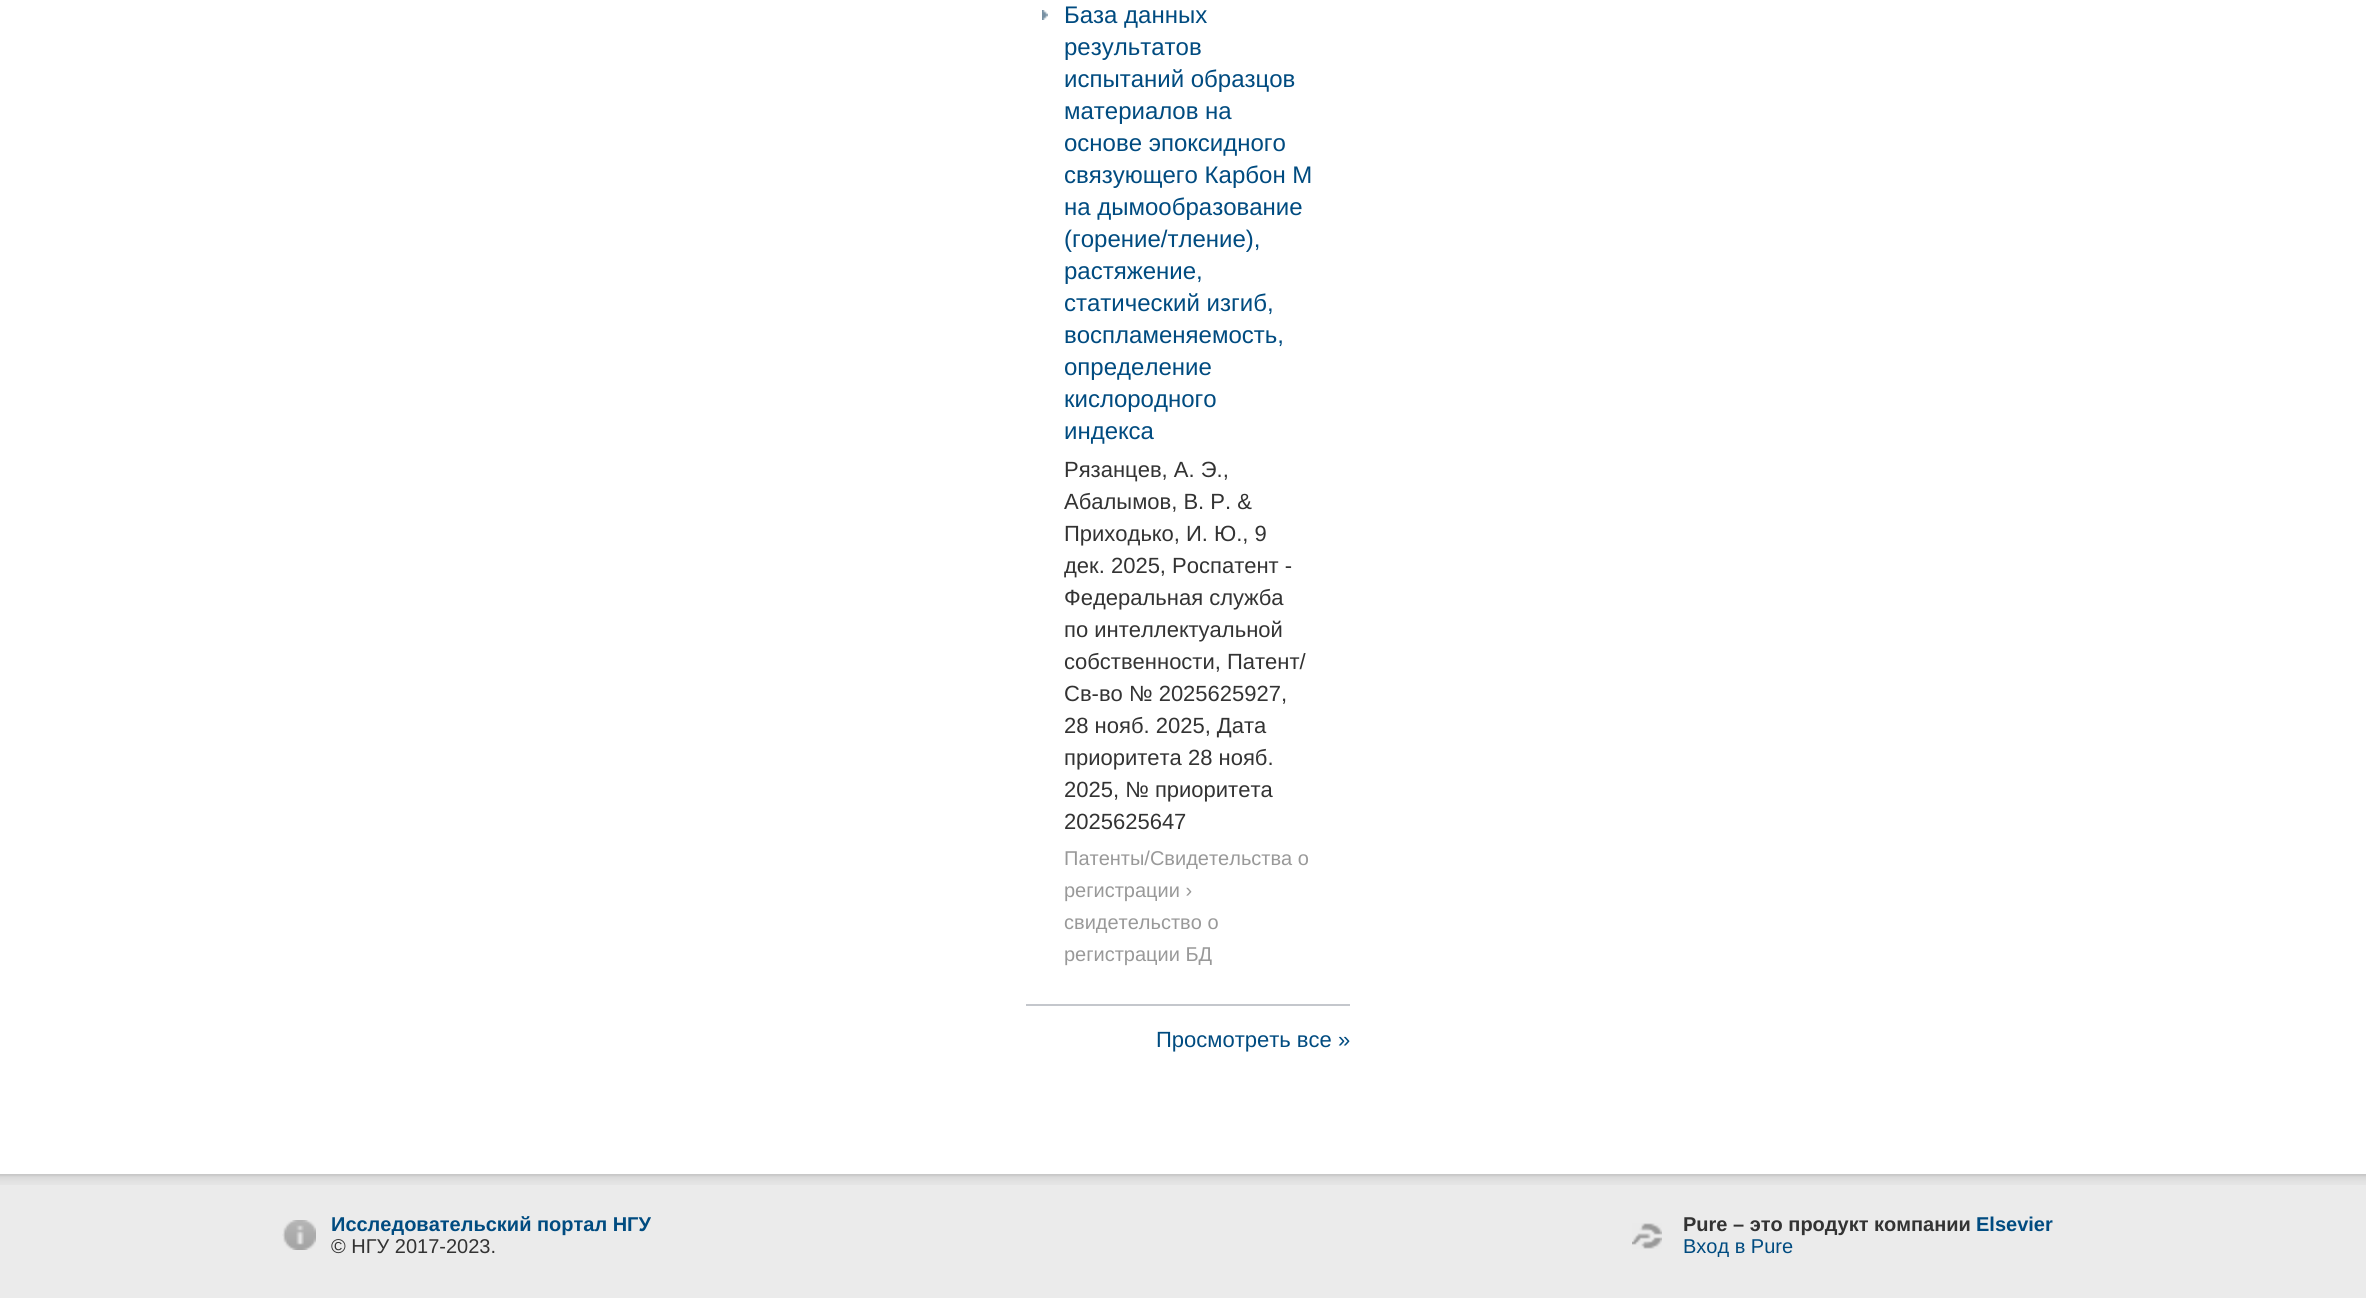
import math
import cairo

surface = cairo.ImageSurface(cairo.FORMAT_RGB24, 2366, 1298)
ctx = cairo.Context(surface)
options = cairo.FontOptions()
options.set_hint_metrics(cairo.HINT_METRICS_OFF)
options.set_hint_style(cairo.HINT_STYLE_NONE)
ctx.set_font_options(options)
ctx.set_miter_limit(4)


def picture(path, x, y, w, h):
    ctx.save()
    ctx.set_source_surface(cairo.ImageSurface.create_from_png(path), x, y)
    ctx.rectangle(x, y, w, h)
    ctx.fill()
    ctx.restore()


ctx.set_source_rgb(0.918, 0.918, 0.918)
ctx.paint()
ctx.set_source_rgb(1, 1, 1)
ctx.rectangle(0, 0, 2366, 1174)
ctx.fill()
picture("img1.png", 1042, 10, 6, 10)
ctx.set_source_rgb(0.769, 0.78, 0.8)
ctx.rectangle(1026, 1004, 324, 2)
ctx.fill()
ctx.select_font_face("Liberation Sans")
ctx.set_font_size(24)
ctx.set_source_rgb(0, 0.294, 0.502)
ctx.move_to(1064, 23)
ctx.show_text("База данных")
ctx.move_to(1064, 55)
ctx.show_text("результатов")
ctx.move_to(1064, 87)
ctx.show_text("испытаний образцов")
ctx.move_to(1064, 119)
ctx.show_text("материалов на")
ctx.move_to(1064, 151)
ctx.show_text("основе эпоксидного")
ctx.move_to(1064, 183)
ctx.show_text("связующего Карбон М")
ctx.move_to(1064, 215)
ctx.show_text("на дымообразование")
ctx.move_to(1064, 247)
ctx.show_text("(горение/тление),")
ctx.move_to(1064, 279)
ctx.show_text("растяжение,")
ctx.move_to(1064, 311)
ctx.show_text("статический изгиб,")
ctx.move_to(1064, 343)
ctx.show_text("воспламеняемость,")
ctx.move_to(1064, 375)
ctx.show_text("определение")
ctx.move_to(1064, 407)
ctx.show_text("кислородного")
ctx.move_to(1064, 439)
ctx.show_text("индекса")
ctx.set_font_size(22)
ctx.set_source_rgb(0.2, 0.2, 0.2)
ctx.move_to(1064, 477)
ctx.show_text("Рязанцев, А. Э.,")
ctx.move_to(1064, 509)
ctx.show_text("Абалымов, В. Р. &")
ctx.move_to(1064, 541)
ctx.show_text("Приходько, И. Ю., 9")
ctx.move_to(1064, 573)
ctx.show_text("дек. 2025, Роспатент -")
ctx.move_to(1064, 605)
ctx.show_text("Федеральная служба")
ctx.move_to(1064, 637)
ctx.show_text("по интеллектуальной")
ctx.move_to(1064, 669)
ctx.show_text("собственности, Патент/")
ctx.move_to(1064, 701)
ctx.show_text("Св-во № 2025625927,")
ctx.move_to(1064, 733)
ctx.show_text("28 нояб. 2025, Дата")
ctx.move_to(1064, 765)
ctx.show_text("приоритета 28 нояб.")
ctx.move_to(1064, 797)
ctx.show_text("2025, № приоритета")
ctx.move_to(1064, 829)
ctx.show_text("2025625647")
ctx.set_font_size(20)
ctx.set_source_rgb(0.6, 0.6, 0.6)
ctx.move_to(1064, 865)
ctx.show_text("Патенты/Свидетельства о")
ctx.move_to(1064, 897)
ctx.show_text("регистрации ›")
ctx.move_to(1064, 929)
ctx.show_text("свидетельство о")
ctx.move_to(1064, 961)
ctx.show_text("регистрации БД")
ctx.set_font_size(22)
ctx.set_source_rgb(0, 0.294, 0.502)
ctx.move_to(1156, 1047)
ctx.show_text("Просмотреть все »")
picture("img2.png", 0, 1174, 2366, 11)
picture("img3.png", 282, 1220, 34, 30)
ctx.select_font_face("Liberation Sans", cairo.FONT_SLANT_NORMAL, cairo.FONT_WEIGHT_BOLD)
ctx.set_font_size(20)
ctx.move_to(331, 1231)
ctx.show_text("Исследовательский портал НГУ")
ctx.select_font_face("Liberation Sans")
ctx.set_source_rgb(0.2, 0.2, 0.2)
ctx.move_to(331, 1253)
ctx.show_text("© НГУ 2017-2023.")
picture("img4.png", 1632, 1223, 30, 26)
ctx.select_font_face("Liberation Sans", cairo.FONT_SLANT_NORMAL, cairo.FONT_WEIGHT_BOLD)
ctx.move_to(1683, 1231)
ctx.show_text("Pure – это продукт компании")
ctx.set_source_rgb(0, 0.294, 0.502)
ctx.move_to(1976, 1231)
ctx.show_text("Elsevier")
ctx.select_font_face("Liberation Sans")
ctx.move_to(1683, 1253)
ctx.show_text("Вход в Pure")
surface.write_to_png("page.png")
